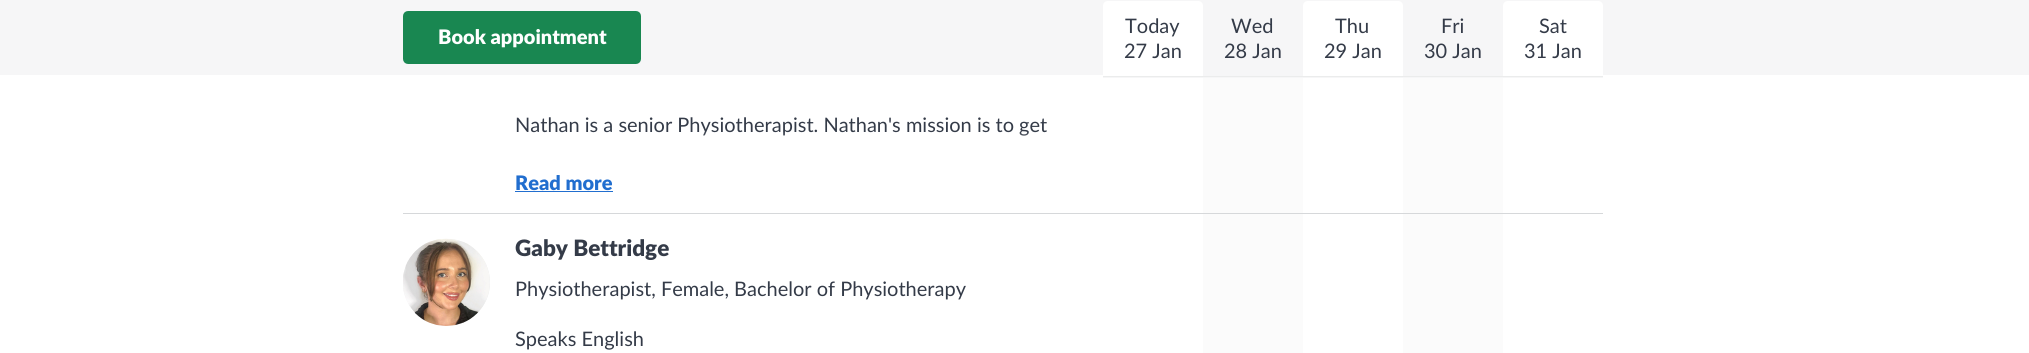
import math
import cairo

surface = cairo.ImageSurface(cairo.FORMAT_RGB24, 2029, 353)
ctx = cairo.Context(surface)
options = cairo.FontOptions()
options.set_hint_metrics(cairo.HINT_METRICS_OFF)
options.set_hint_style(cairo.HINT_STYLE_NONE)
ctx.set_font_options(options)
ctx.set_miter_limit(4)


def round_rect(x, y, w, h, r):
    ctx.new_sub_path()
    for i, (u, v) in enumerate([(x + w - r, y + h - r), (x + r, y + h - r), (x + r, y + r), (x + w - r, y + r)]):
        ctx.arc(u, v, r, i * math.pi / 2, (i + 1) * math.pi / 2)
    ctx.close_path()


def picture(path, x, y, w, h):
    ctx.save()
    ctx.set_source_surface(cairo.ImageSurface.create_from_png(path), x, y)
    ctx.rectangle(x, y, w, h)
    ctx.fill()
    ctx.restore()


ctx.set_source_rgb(1, 1, 1)
ctx.paint()
ctx.set_source_rgb(0.961, 0.961, 0.965)
ctx.rectangle(0, 0, 2029, 75)
ctx.fill()
ctx.set_source_rgb(0.098, 0.529, 0.318)
round_rect(404.5, 12.5, 235, 50, 3.5)
ctx.fill_preserve()
ctx.set_line_width(3)
ctx.stroke()
ctx.select_font_face("Lato Black")
ctx.set_font_size(20)
ctx.set_source_rgb(1, 1, 1)
ctx.move_to(438, 44)
ctx.show_text("Book appointment")
ctx.set_source_rgb(0.961, 0.961, 0.965)
ctx.rectangle(1103, 75, 500, 3)
ctx.fill()
ctx.set_source_rgb(0.918, 0.922, 0.925)
ctx.rectangle(1103, 76, 500, 1)
ctx.fill()
ctx.set_source_rgb(1, 1, 1)
ctx.new_path()
ctx.move_to(1108, 1)
ctx.line_to(1198, 1)
ctx.curve_to(1201, 1, 1203, 3, 1203, 6)
ctx.line_to(1203, 76)
ctx.line_to(1103, 76)
ctx.line_to(1103, 6)
ctx.curve_to(1103, 3, 1105, 1, 1108, 1)
ctx.close_path()
ctx.fill()
ctx.select_font_face("Lato")
ctx.set_source_rgb(0.204, 0.231, 0.282)
ctx.move_to(1125, 33)
ctx.show_text("Today")
ctx.move_to(1124, 58)
ctx.show_text("27 Jan")
ctx.move_to(1231, 33)
ctx.show_text("Wed")
ctx.move_to(1224, 58)
ctx.show_text("28 Jan")
ctx.set_source_rgb(1, 1, 1)
ctx.new_path()
ctx.move_to(1308, 1)
ctx.line_to(1398, 1)
ctx.curve_to(1401, 1, 1403, 3, 1403, 6)
ctx.line_to(1403, 76)
ctx.line_to(1303, 76)
ctx.line_to(1303, 6)
ctx.curve_to(1303, 3, 1305, 1, 1308, 1)
ctx.close_path()
ctx.fill()
ctx.set_source_rgb(0.204, 0.231, 0.282)
ctx.move_to(1335, 33)
ctx.show_text("Thu")
ctx.move_to(1324, 58)
ctx.show_text("29 Jan")
ctx.move_to(1441, 33)
ctx.show_text("Fri")
ctx.move_to(1424, 58)
ctx.show_text("30 Jan")
ctx.set_source_rgb(1, 1, 1)
ctx.new_path()
ctx.move_to(1508, 1)
ctx.line_to(1598, 1)
ctx.curve_to(1601, 1, 1603, 3, 1603, 6)
ctx.line_to(1603, 76)
ctx.line_to(1503, 76)
ctx.line_to(1503, 6)
ctx.curve_to(1503, 3, 1505, 1, 1508, 1)
ctx.close_path()
ctx.fill()
ctx.set_source_rgb(0.204, 0.231, 0.282)
ctx.move_to(1539, 33)
ctx.show_text("Sat")
ctx.move_to(1524, 58)
ctx.show_text("31 Jan")
ctx.set_source_rgb(0.839, 0.847, 0.855)
ctx.rectangle(403, 213, 1200, 1)
ctx.fill()
ctx.set_source_rgb(0.204, 0.231, 0.282)
ctx.move_to(515, 132)
ctx.show_text("Nathan is a senior Physiotherapist. Nathan's mission is to get")
gradient = cairo.LinearGradient(796, 213, 796, 131)
gradient.add_color_stop_rgba(0, 1, 1, 1, 1)
gradient.add_color_stop_rgba(0.6, 1, 1, 1, 1)
gradient.add_color_stop_rgba(1, 1, 1, 1, 0)
ctx.set_source(gradient)
ctx.rectangle(703, 132, 326, 4)
ctx.fill()
ctx.select_font_face("Lato Black")
ctx.set_source_rgb(0.129, 0.431, 0.812)
ctx.move_to(515, 190)
ctx.show_text("Read more")
ctx.rectangle(515, 191, 98, 1)
ctx.fill()
ctx.set_source_rgb(0.984, 0.984, 0.984)
ctx.rectangle(1203, 78, 100, 135)
ctx.fill()
ctx.rectangle(1403, 78, 100, 135)
ctx.fill()
ctx.set_source_rgb(0.918, 0.922, 0.925)
ctx.arc(446.5, 282.5, 43.5, 0, 2 * math.pi)
ctx.fill()
picture("img1.png", 403, 238, 87, 88)
ctx.set_font_size(22.5)
ctx.set_source_rgb(0.204, 0.231, 0.282)
ctx.move_to(515, 256)
ctx.show_text("Gaby Bettridge")
ctx.select_font_face("Lato")
ctx.set_font_size(20)
ctx.move_to(515, 296)
ctx.show_text("Physiotherapist, Female, Bachelor of Physiotherapy")
ctx.move_to(515, 346)
ctx.show_text("Speaks English")
ctx.set_source_rgb(0.984, 0.984, 0.984)
ctx.rectangle(1203, 214, 100, 139)
ctx.fill()
ctx.rectangle(1403, 214, 100, 139)
ctx.fill()
surface.write_to_png("page.png")
